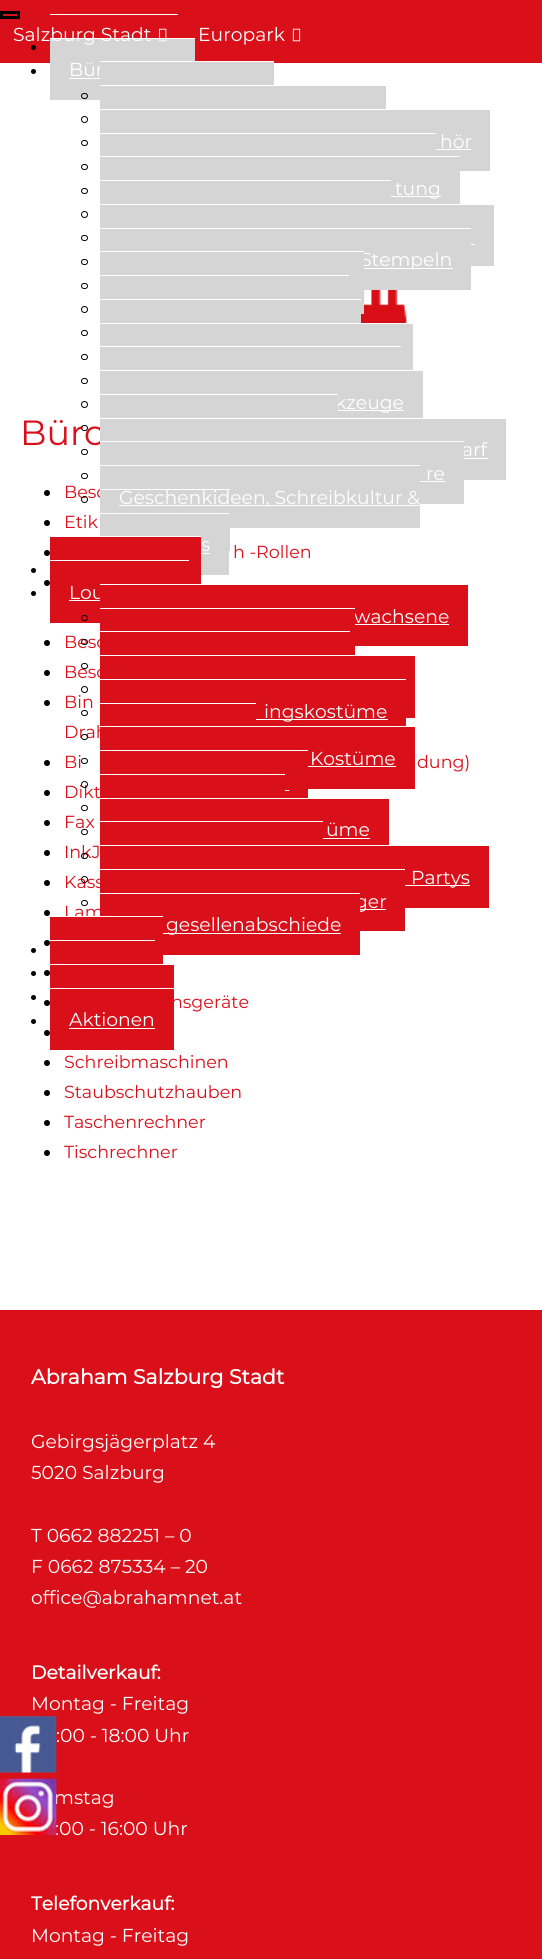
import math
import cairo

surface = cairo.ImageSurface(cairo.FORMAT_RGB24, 542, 1959)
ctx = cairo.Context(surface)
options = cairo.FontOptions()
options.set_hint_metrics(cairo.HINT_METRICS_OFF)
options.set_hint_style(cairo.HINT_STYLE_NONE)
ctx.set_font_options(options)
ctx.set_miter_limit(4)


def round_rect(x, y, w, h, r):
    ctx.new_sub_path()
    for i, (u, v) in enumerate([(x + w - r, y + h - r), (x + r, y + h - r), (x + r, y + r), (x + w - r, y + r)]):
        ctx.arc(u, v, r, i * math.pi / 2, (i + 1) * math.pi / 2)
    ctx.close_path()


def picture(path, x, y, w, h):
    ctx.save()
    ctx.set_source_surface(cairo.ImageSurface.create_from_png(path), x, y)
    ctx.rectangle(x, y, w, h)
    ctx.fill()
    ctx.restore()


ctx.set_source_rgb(1, 1, 1)
ctx.paint()
ctx.set_source_rgb(0.851, 0.059, 0.102)
ctx.rectangle(0, 0, 542, 63)
ctx.fill()
ctx.set_source_rgb(0.835, 0.835, 0.835)
ctx.rectangle(50, 39, 145, 61)
ctx.fill()
ctx.set_source_rgb(1, 1, 1)
ctx.rectangle(50, 38, 145, 1)
ctx.fill()
ctx.select_font_face("Montserrat")
ctx.set_font_size(18.75)
ctx.move_to(13, 41)
ctx.show_text("Salzburg Stadt")
picture("img1.png", 159, 28, 8, 14)
ctx.move_to(198, 41)
ctx.show_text("Europark")
picture("img2.png", 292, 28, 9, 14)
ctx.rectangle(1.5, 12.5, 17, 5)
ctx.set_source_rgb(0, 0, 0)
ctx.set_line_width(3)
ctx.stroke()
ctx.set_source_rgb(1, 1, 1)
ctx.rectangle(50, 14, 128, 1)
ctx.fill()
ctx.set_source_rgb(0, 0, 0)
ctx.arc(33.5, 47.5, 2.5, 0, 2 * math.pi)
ctx.fill()
ctx.arc(33.5, 71.5, 2.5, 0, 2 * math.pi)
ctx.fill()
ctx.set_source_rgb(1, 1, 1)
ctx.move_to(69, 76)
ctx.show_text("Bür")
ctx.rectangle(69, 78, 31, 1)
ctx.fill()
ctx.rectangle(100, 61, 174, 1)
ctx.fill()
ctx.set_source_rgb(0.835, 0.835, 0.835)
ctx.rectangle(100, 62, 174, 23)
ctx.fill()
round_rect(81.5, 93.5, 6, 5, 2.5)
ctx.set_source_rgb(0, 0, 0)
ctx.set_line_width(1)
ctx.stroke()
ctx.set_source_rgb(1, 1, 1)
ctx.rectangle(100, 85, 95, 1)
ctx.fill()
ctx.set_source_rgb(0.835, 0.835, 0.835)
ctx.rectangle(100, 86, 286, 23)
ctx.fill()
ctx.arc(84.5, 119.5, 3, 0, 2 * math.pi)
ctx.set_source_rgb(0, 0, 0)
ctx.stroke()
ctx.set_source_rgb(0.835, 0.835, 0.835)
ctx.rectangle(100, 110, 390, 61)
ctx.fill()
ctx.set_source_rgb(1, 1, 1)
ctx.rectangle(100, 133, 336, 1)
ctx.fill()
round_rect(81.5, 164.5, 6, 5, 2.5)
ctx.set_source_rgb(0, 0, 0)
ctx.stroke()
round_rect(81.5, 140.5, 6, 5, 2.5)
ctx.stroke()
ctx.set_source_rgb(1, 1, 1)
ctx.move_to(440, 148)
ctx.show_text("hör")
ctx.rectangle(436, 149, 35, 1)
ctx.fill()
ctx.set_source_rgb(0.835, 0.835, 0.835)
ctx.rectangle(100, 171, 360, 33)
ctx.fill()
ctx.set_source_rgb(1, 1, 1)
ctx.rectangle(100, 180, 291, 1)
ctx.fill()
ctx.arc(84.5, 214.5, 3, 0, 2 * math.pi)
ctx.set_source_rgb(0, 0, 0)
ctx.stroke()
round_rect(81.5, 188.5, 6, 5, 2.5)
ctx.stroke()
ctx.set_source_rgb(1, 1, 1)
ctx.rectangle(391, 196, 50, 1)
ctx.fill()
ctx.move_to(395, 195)
ctx.show_text("tung")
ctx.rectangle(100, 156, 360, 1)
ctx.fill()
round_rect(81.5, 235.5, 6, 5, 2.5)
ctx.set_source_rgb(0, 0, 0)
ctx.stroke()
ctx.set_source_rgb(0.835, 0.835, 0.835)
ctx.rectangle(100, 205, 394, 61)
ctx.fill()
ctx.set_source_rgb(1, 1, 1)
ctx.rectangle(471, 244, 4, 1)
ctx.fill()
ctx.rectangle(100, 251, 264, 1)
ctx.fill()
round_rect(81.5, 283.5, 6, 5, 2.5)
ctx.set_source_rgb(0, 0, 0)
ctx.stroke()
ctx.set_source_rgb(0.835, 0.835, 0.835)
ctx.rectangle(100, 266, 371, 24)
ctx.fill()
ctx.set_source_rgb(1, 1, 1)
ctx.rectangle(364, 268, 89, 1)
ctx.fill()
ctx.move_to(360, 266)
ctx.show_text("Stempeln")
picture("img3.png", 361, 290, 46, 33)
ctx.set_source_rgb(0.835, 0.835, 0.835)
ctx.rectangle(100, 253, 264, 61)
ctx.fill()
round_rect(81.5, 259.5, 6, 5, 2.5)
ctx.set_source_rgb(0, 0, 0)
ctx.stroke()
ctx.set_source_rgb(1, 1, 1)
ctx.rectangle(100, 228, 371, 1)
ctx.fill()
ctx.rectangle(100, 275, 249, 1)
ctx.fill()
ctx.arc(84.5, 309.5, 3, 0, 2 * math.pi)
ctx.set_source_rgb(0, 0, 0)
ctx.stroke()
ctx.set_source_rgb(1, 1, 1)
ctx.rectangle(100, 299, 261, 1)
ctx.fill()
ctx.set_source_rgb(0.835, 0.835, 0.835)
ctx.rectangle(100, 314, 261, 9)
ctx.fill()
round_rect(81.5, 330.5, 6, 5, 2.5)
ctx.set_source_rgb(0, 0, 0)
ctx.stroke()
round_rect(81.5, 354.5, 6, 5, 2.5)
ctx.stroke()
ctx.set_source_rgb(0.835, 0.835, 0.835)
ctx.rectangle(100, 324, 313, 46)
ctx.fill()
ctx.set_source_rgb(1, 1, 1)
ctx.rectangle(100, 346, 301, 1)
ctx.fill()
round_rect(81.5, 378.5, 6, 5, 2.5)
ctx.set_source_rgb(0, 0, 0)
ctx.stroke()
ctx.set_source_rgb(0.835, 0.835, 0.835)
ctx.rectangle(100, 371, 323, 47)
ctx.fill()
ctx.set_source_rgb(1, 1, 1)
ctx.rectangle(100, 394, 238, 1)
ctx.fill()
ctx.rectangle(338, 410, 66, 1)
ctx.fill()
ctx.move_to(335, 409)
ctx.show_text("kzeuge")
ctx.set_source_rgb(0.835, 0.835, 0.835)
ctx.rectangle(336, 395, 2, 14)
ctx.fill()
ctx.set_font_size(35)
ctx.set_source_rgb(0.851, 0.059, 0.102)
ctx.move_to(20, 445)
ctx.show_text("Büro")
round_rect(81.5, 425.5, 6, 5, 2.5)
ctx.set_source_rgb(0, 0, 0)
ctx.stroke()
ctx.arc(84.5, 404.5, 3, 0, 2 * math.pi)
ctx.stroke()
round_rect(81.5, 449.5, 6, 5, 2.5)
ctx.stroke()
ctx.set_source_rgb(0.835, 0.835, 0.835)
ctx.rectangle(100, 419, 406, 61)
ctx.fill()
ctx.set_font_size(18.75)
ctx.set_source_rgb(1, 1, 1)
ctx.move_to(462, 456)
ctx.show_text("arf")
ctx.rectangle(464, 458, 24, 1)
ctx.fill()
round_rect(81.5, 473.5, 6, 5, 2.5)
ctx.set_source_rgb(0, 0, 0)
ctx.stroke()
ctx.set_font_size(17.5)
ctx.set_source_rgb(0.851, 0.059, 0.102)
ctx.move_to(64, 498)
ctx.show_text("Besc")
ctx.set_source_rgb(0.835, 0.835, 0.835)
ctx.rectangle(100, 447, 364, 57)
ctx.fill()
ctx.set_font_size(18.75)
ctx.set_source_rgb(1, 1, 1)
ctx.move_to(426, 480)
ctx.show_text("re")
ctx.rectangle(100, 441, 364, 1)
ctx.fill()
ctx.rectangle(420, 481, 25, 1)
ctx.fill()
ctx.arc(84.5, 499.5, 3, 0, 2 * math.pi)
ctx.set_source_rgb(0, 0, 0)
ctx.stroke()
ctx.set_source_rgb(0.835, 0.835, 0.835)
ctx.rectangle(100, 504, 320, 24)
ctx.fill()
ctx.set_source_rgb(1, 1, 1)
ctx.rectangle(119, 505, 301, 1)
ctx.fill()
ctx.move_to(119, 504)
ctx.show_text("Geschenkideen, Schreibkultur &")
ctx.rectangle(100, 465, 320, 1)
ctx.fill()
ctx.set_source_rgb(0.835, 0.835, 0.835)
ctx.rectangle(100, 528, 130, 23)
ctx.fill()
ctx.set_source_rgb(1, 1, 1)
ctx.rectangle(100, 489, 130, 1)
ctx.fill()
ctx.set_source_rgb(0.835, 0.835, 0.835)
ctx.rectangle(100, 551, 129, 24)
ctx.fill()
ctx.set_source_rgb(1, 1, 1)
ctx.move_to(201, 551)
ctx.show_text("s")
ctx.rectangle(100, 513, 129, 1)
ctx.fill()
ctx.rectangle(201, 553, 9, 1)
ctx.fill()
ctx.rectangle(100, 536, 101, 1)
ctx.fill()
ctx.set_source_rgb(0, 0, 0)
ctx.arc(33.5, 570.5, 2.5, 0, 2 * math.pi)
ctx.fill()
ctx.set_source_rgb(0.851, 0.059, 0.102)
ctx.rectangle(50, 537, 151, 47)
ctx.fill()
ctx.set_source_rgb(0, 0, 0)
ctx.arc(33.5, 593.5, 2.5, 0, 2 * math.pi)
ctx.fill()
ctx.set_source_rgb(0.851, 0.059, 0.102)
ctx.rectangle(50, 584, 139, 39)
ctx.fill()
ctx.set_source_rgb(1, 1, 1)
ctx.move_to(69, 599)
ctx.show_text("Lou")
ctx.rectangle(50, 560, 139, 1)
ctx.fill()
ctx.rectangle(69, 600, 31, 1)
ctx.fill()
ctx.set_source_rgb(0.851, 0.059, 0.102)
ctx.rectangle(100, 585, 368, 61)
ctx.fill()
ctx.set_source_rgb(1, 1, 1)
ctx.rectangle(100, 608, 255, 1)
ctx.fill()
ctx.set_font_size(17.5)
ctx.set_source_rgb(0.851, 0.059, 0.102)
ctx.move_to(64, 648)
ctx.show_text("Besc")
round_rect(81.5, 639.5, 6, 5, 2.5)
ctx.set_source_rgb(0, 0, 0)
ctx.stroke()
ctx.set_font_size(18.75)
ctx.set_source_rgb(1, 1, 1)
ctx.move_to(354, 623)
ctx.show_text("wachsene")
ctx.set_source_rgb(0.851, 0.059, 0.102)
ctx.rectangle(100, 613, 255, 42)
ctx.fill()
round_rect(81.5, 615.5, 6, 5, 2.5)
ctx.set_source_rgb(0, 0, 0)
ctx.stroke()
ctx.set_source_rgb(1, 1, 1)
ctx.rectangle(100, 584, 89, 1)
ctx.fill()
ctx.rectangle(355, 624, 94, 1)
ctx.fill()
ctx.rectangle(100, 631, 250, 1)
ctx.fill()
ctx.set_font_size(17.5)
ctx.set_source_rgb(0.851, 0.059, 0.102)
ctx.move_to(64, 678)
ctx.show_text("Besc")
round_rect(81.5, 663.5, 6, 5, 2.5)
ctx.set_source_rgb(0, 0, 0)
ctx.stroke()
ctx.arc(84.5, 689.5, 3, 0, 2 * math.pi)
ctx.stroke()
ctx.set_source_rgb(0.851, 0.059, 0.102)
ctx.rectangle(100, 656, 315, 62)
ctx.fill()
ctx.set_source_rgb(1, 1, 1)
ctx.rectangle(100, 703, 156, 1)
ctx.fill()
ctx.set_source_rgb(0.851, 0.059, 0.102)
ctx.move_to(64, 738)
ctx.show_text("Drah")
round_rect(81.5, 734.5, 6, 5, 2.5)
ctx.set_source_rgb(0, 0, 0)
ctx.stroke()
round_rect(81.5, 710.5, 6, 5, 2.5)
ctx.stroke()
ctx.set_source_rgb(0.851, 0.059, 0.102)
ctx.rectangle(100, 718, 306, 8)
ctx.fill()
ctx.set_source_rgb(1, 1, 1)
ctx.rectangle(256, 719, 132, 1)
ctx.fill()
ctx.set_font_size(18.75)
ctx.move_to(264, 718)
ctx.show_text("ingskostüme")
ctx.rectangle(100, 679, 306, 1)
ctx.fill()
ctx.set_source_rgb(0.851, 0.059, 0.102)
ctx.rectangle(100, 727, 315, 62)
ctx.fill()
ctx.set_source_rgb(1, 1, 1)
ctx.rectangle(100, 750, 208, 1)
ctx.fill()
ctx.set_font_size(17.5)
ctx.set_source_rgb(0.851, 0.059, 0.102)
ctx.move_to(64, 798)
ctx.show_text("Dikt")
ctx.new_path()
ctx.arc(84.5, 784.5, 3, 0, 2 * math.pi)
ctx.set_source_rgb(0, 0, 0)
ctx.stroke()
ctx.set_source_rgb(0.851, 0.059, 0.102)
ctx.rectangle(100, 789, 208, 9)
ctx.fill()
ctx.set_source_rgb(1, 1, 1)
ctx.rectangle(285, 790, 4, 1)
ctx.fill()
round_rect(81.5, 758.5, 6, 5, 2.5)
ctx.set_source_rgb(0, 0, 0)
ctx.stroke()
ctx.set_font_size(18.75)
ctx.set_source_rgb(1, 1, 1)
ctx.move_to(310, 765)
ctx.show_text("Kostüme")
ctx.rectangle(308, 766, 88, 1)
ctx.fill()
ctx.rectangle(100, 774, 185, 1)
ctx.fill()
round_rect(81.5, 805.5, 6, 5, 2.5)
ctx.set_source_rgb(0, 0, 0)
ctx.stroke()
ctx.set_source_rgb(0.851, 0.059, 0.102)
ctx.rectangle(100, 799, 289, 46)
ctx.fill()
ctx.set_source_rgb(1, 1, 1)
ctx.rectangle(100, 821, 223, 1)
ctx.fill()
ctx.set_font_size(17.5)
ctx.set_source_rgb(0.851, 0.059, 0.102)
ctx.move_to(64, 858)
ctx.show_text("InkJ")
round_rect(81.5, 853.5, 6, 5, 2.5)
ctx.set_source_rgb(0, 0, 0)
ctx.stroke()
round_rect(81.5, 829.5, 6, 5, 2.5)
ctx.stroke()
ctx.set_font_size(18.75)
ctx.set_source_rgb(1, 1, 1)
ctx.move_to(326, 836)
ctx.show_text("üme")
ctx.rectangle(323, 838, 47, 1)
ctx.fill()
ctx.set_font_size(17.5)
ctx.set_source_rgb(0.851, 0.059, 0.102)
ctx.move_to(64, 888)
ctx.show_text("Kass")
ctx.new_path()
ctx.arc(84.5, 879.5, 3, 0, 2 * math.pi)
ctx.set_source_rgb(0, 0, 0)
ctx.stroke()
ctx.set_source_rgb(0.851, 0.059, 0.102)
ctx.rectangle(100, 846, 389, 62)
ctx.fill()
ctx.set_source_rgb(1, 1, 1)
ctx.rectangle(405, 885, 65, 1)
ctx.fill()
ctx.set_font_size(18.75)
ctx.move_to(411, 884)
ctx.show_text("Partys")
ctx.set_font_size(17.5)
ctx.set_source_rgb(0.851, 0.059, 0.102)
ctx.move_to(64, 918)
ctx.show_text("Lam")
round_rect(81.5, 900.5, 6, 5, 2.5)
ctx.set_source_rgb(0, 0, 0)
ctx.stroke()
ctx.set_source_rgb(0.851, 0.059, 0.102)
ctx.rectangle(100, 908, 305, 23)
ctx.fill()
ctx.set_source_rgb(1, 1, 1)
ctx.rectangle(360, 909, 26, 1)
ctx.fill()
ctx.set_font_size(18.75)
ctx.move_to(355, 908)
ctx.show_text("ger")
ctx.rectangle(100, 869, 305, 1)
ctx.fill()
ctx.set_source_rgb(0.851, 0.059, 0.102)
ctx.rectangle(100, 898, 260, 57)
ctx.fill()
ctx.set_source_rgb(1, 1, 1)
ctx.rectangle(163, 933, 178, 1)
ctx.fill()
ctx.move_to(166, 931)
ctx.show_text("gesellenabschiede")
ctx.rectangle(100, 893, 260, 1)
ctx.fill()
ctx.rectangle(65, 916, 98, 1)
ctx.fill()
ctx.set_source_rgb(0, 0, 0)
ctx.arc(33.5, 950.5, 2.5, 0, 2 * math.pi)
ctx.fill()
ctx.set_source_rgb(0.851, 0.059, 0.102)
ctx.rectangle(50, 917, 113, 47)
ctx.fill()
ctx.set_source_rgb(1, 1, 1)
ctx.rectangle(50, 940, 105, 1)
ctx.fill()
ctx.set_source_rgb(0, 0, 0)
ctx.arc(33.5, 973.5, 2.5, 0, 2 * math.pi)
ctx.fill()
ctx.set_source_rgb(0.851, 0.059, 0.102)
ctx.rectangle(50, 965, 124, 23)
ctx.fill()
ctx.set_source_rgb(0, 0, 0)
ctx.arc(33.5, 997.5, 2.5, 0, 2 * math.pi)
ctx.fill()
ctx.arc(33.5, 1021.5, 2.5, 0, 2 * math.pi)
ctx.fill()
ctx.set_source_rgb(0.851, 0.059, 0.102)
ctx.rectangle(50, 989, 124, 61)
ctx.fill()
ctx.set_source_rgb(1, 1, 1)
ctx.move_to(69, 1026)
ctx.show_text("Aktionen")
ctx.rectangle(69, 1028, 86, 1)
ctx.fill()
ctx.set_source_rgb(0, 0, 0)
ctx.arc(47, 493, 3, 0, 2 * math.pi)
ctx.fill()
ctx.arc(47, 523, 3, 0, 2 * math.pi)
ctx.fill()
ctx.set_font_size(17.5)
ctx.set_source_rgb(0.851, 0.059, 0.102)
ctx.move_to(64, 528)
ctx.show_text("Etik")
ctx.set_source_rgb(0, 0, 0)
ctx.new_path()
ctx.arc(47, 553, 3, 0, 2 * math.pi)
ctx.fill()
ctx.set_source_rgb(0.851, 0.059, 0.102)
ctx.move_to(233, 558)
ctx.show_text("h -Rollen")
ctx.set_source_rgb(0, 0, 0)
ctx.new_path()
ctx.arc(47, 583, 3, 0, 2 * math.pi)
ctx.fill()
ctx.arc(47, 643, 3, 0, 2 * math.pi)
ctx.fill()
ctx.arc(47, 673, 3, 0, 2 * math.pi)
ctx.fill()
ctx.arc(47, 703, 3, 0, 2 * math.pi)
ctx.fill()
ctx.set_source_rgb(0.851, 0.059, 0.102)
ctx.move_to(64, 708)
ctx.show_text("Bin")
ctx.set_source_rgb(0, 0, 0)
ctx.new_path()
ctx.arc(47, 763, 3, 0, 2 * math.pi)
ctx.fill()
ctx.set_source_rgb(0.851, 0.059, 0.102)
ctx.move_to(64, 768)
ctx.show_text("Bi")
ctx.move_to(417, 768)
ctx.show_text("dung)")
ctx.set_source_rgb(0, 0, 0)
ctx.new_path()
ctx.arc(47, 793, 3, 0, 2 * math.pi)
ctx.fill()
ctx.arc(47, 823, 3, 0, 2 * math.pi)
ctx.fill()
ctx.set_source_rgb(0.851, 0.059, 0.102)
ctx.move_to(64, 828)
ctx.show_text("Fax")
ctx.set_source_rgb(0, 0, 0)
ctx.new_path()
ctx.arc(47, 853, 3, 0, 2 * math.pi)
ctx.fill()
ctx.arc(47, 883, 3, 0, 2 * math.pi)
ctx.fill()
ctx.arc(47, 913, 3, 0, 2 * math.pi)
ctx.fill()
ctx.arc(47, 943, 3, 0, 2 * math.pi)
ctx.fill()
ctx.arc(47, 973, 3, 0, 2 * math.pi)
ctx.fill()
ctx.arc(47, 1003, 3, 0, 2 * math.pi)
ctx.fill()
ctx.set_source_rgb(0.851, 0.059, 0.102)
ctx.move_to(171, 1008)
ctx.show_text("nsgeräte")
ctx.set_source_rgb(0, 0, 0)
ctx.new_path()
ctx.arc(47, 1033, 3, 0, 2 * math.pi)
ctx.fill()
ctx.arc(47, 1063, 3, 0, 2 * math.pi)
ctx.fill()
ctx.set_source_rgb(0.851, 0.059, 0.102)
ctx.move_to(64, 1068)
ctx.show_text("Schreibmaschinen")
ctx.set_source_rgb(0, 0, 0)
ctx.new_path()
ctx.arc(47, 1093, 3, 0, 2 * math.pi)
ctx.fill()
ctx.set_source_rgb(0.851, 0.059, 0.102)
ctx.move_to(64, 1098)
ctx.show_text("Staubschutzhauben")
ctx.set_source_rgb(0, 0, 0)
ctx.new_path()
ctx.arc(47, 1123, 3, 0, 2 * math.pi)
ctx.fill()
ctx.set_source_rgb(0.851, 0.059, 0.102)
ctx.move_to(64, 1128)
ctx.show_text("Taschenrechner")
ctx.set_source_rgb(0, 0, 0)
ctx.new_path()
ctx.arc(47, 1153, 3, 0, 2 * math.pi)
ctx.fill()
ctx.set_source_rgb(0.851, 0.059, 0.102)
ctx.move_to(64, 1158)
ctx.show_text("Tischrechner")
ctx.rectangle(0, 1310, 542, 649)
ctx.fill()
ctx.set_font_size(18.75)
ctx.set_source_rgb(1, 1, 1)
ctx.move_to(56, 1742)
ctx.show_text(":00 - 18:00 Uhr")
picture("img4.png", 0, 1716, 57, 57)
ctx.select_font_face("Montserrat", cairo.FONT_SLANT_NORMAL, cairo.FONT_WEIGHT_BOLD)
ctx.set_font_size(20.5)
ctx.move_to(31, 1384)
ctx.show_text("Abraham Salzburg Stadt")
ctx.select_font_face("Montserrat")
ctx.set_font_size(18.75)
ctx.move_to(31, 1448)
ctx.show_text("Gebirgsjägerplatz 4")
ctx.move_to(31, 1479)
ctx.show_text("5020 Salzburg")
ctx.move_to(31, 1542)
ctx.show_text("T 0662 882251 – 0")
ctx.move_to(31, 1573)
ctx.show_text("F 0662 875334 – 20")
ctx.move_to(31, 1604)
ctx.show_text("office@abrahamnet.at")
ctx.select_font_face("Montserrat", cairo.FONT_SLANT_NORMAL, cairo.FONT_WEIGHT_BOLD)
ctx.move_to(31, 1679)
ctx.show_text("Detailverkauf:")
ctx.select_font_face("Montserrat")
ctx.move_to(31, 1710)
ctx.show_text("Montag - Freitag")
ctx.move_to(54, 1804)
ctx.show_text("mstag")
ctx.move_to(55, 1835)
ctx.show_text(":00 - 16:00 Uhr")
ctx.select_font_face("Montserrat", cairo.FONT_SLANT_NORMAL, cairo.FONT_WEIGHT_BOLD)
ctx.move_to(31, 1910)
ctx.show_text("Telefonverkauf:")
ctx.select_font_face("Montserrat")
ctx.move_to(31, 1942)
ctx.show_text("Montag - Freitag")
picture("img5.png", 0, 1778, 57, 57)
surface.write_to_png("page.png")
